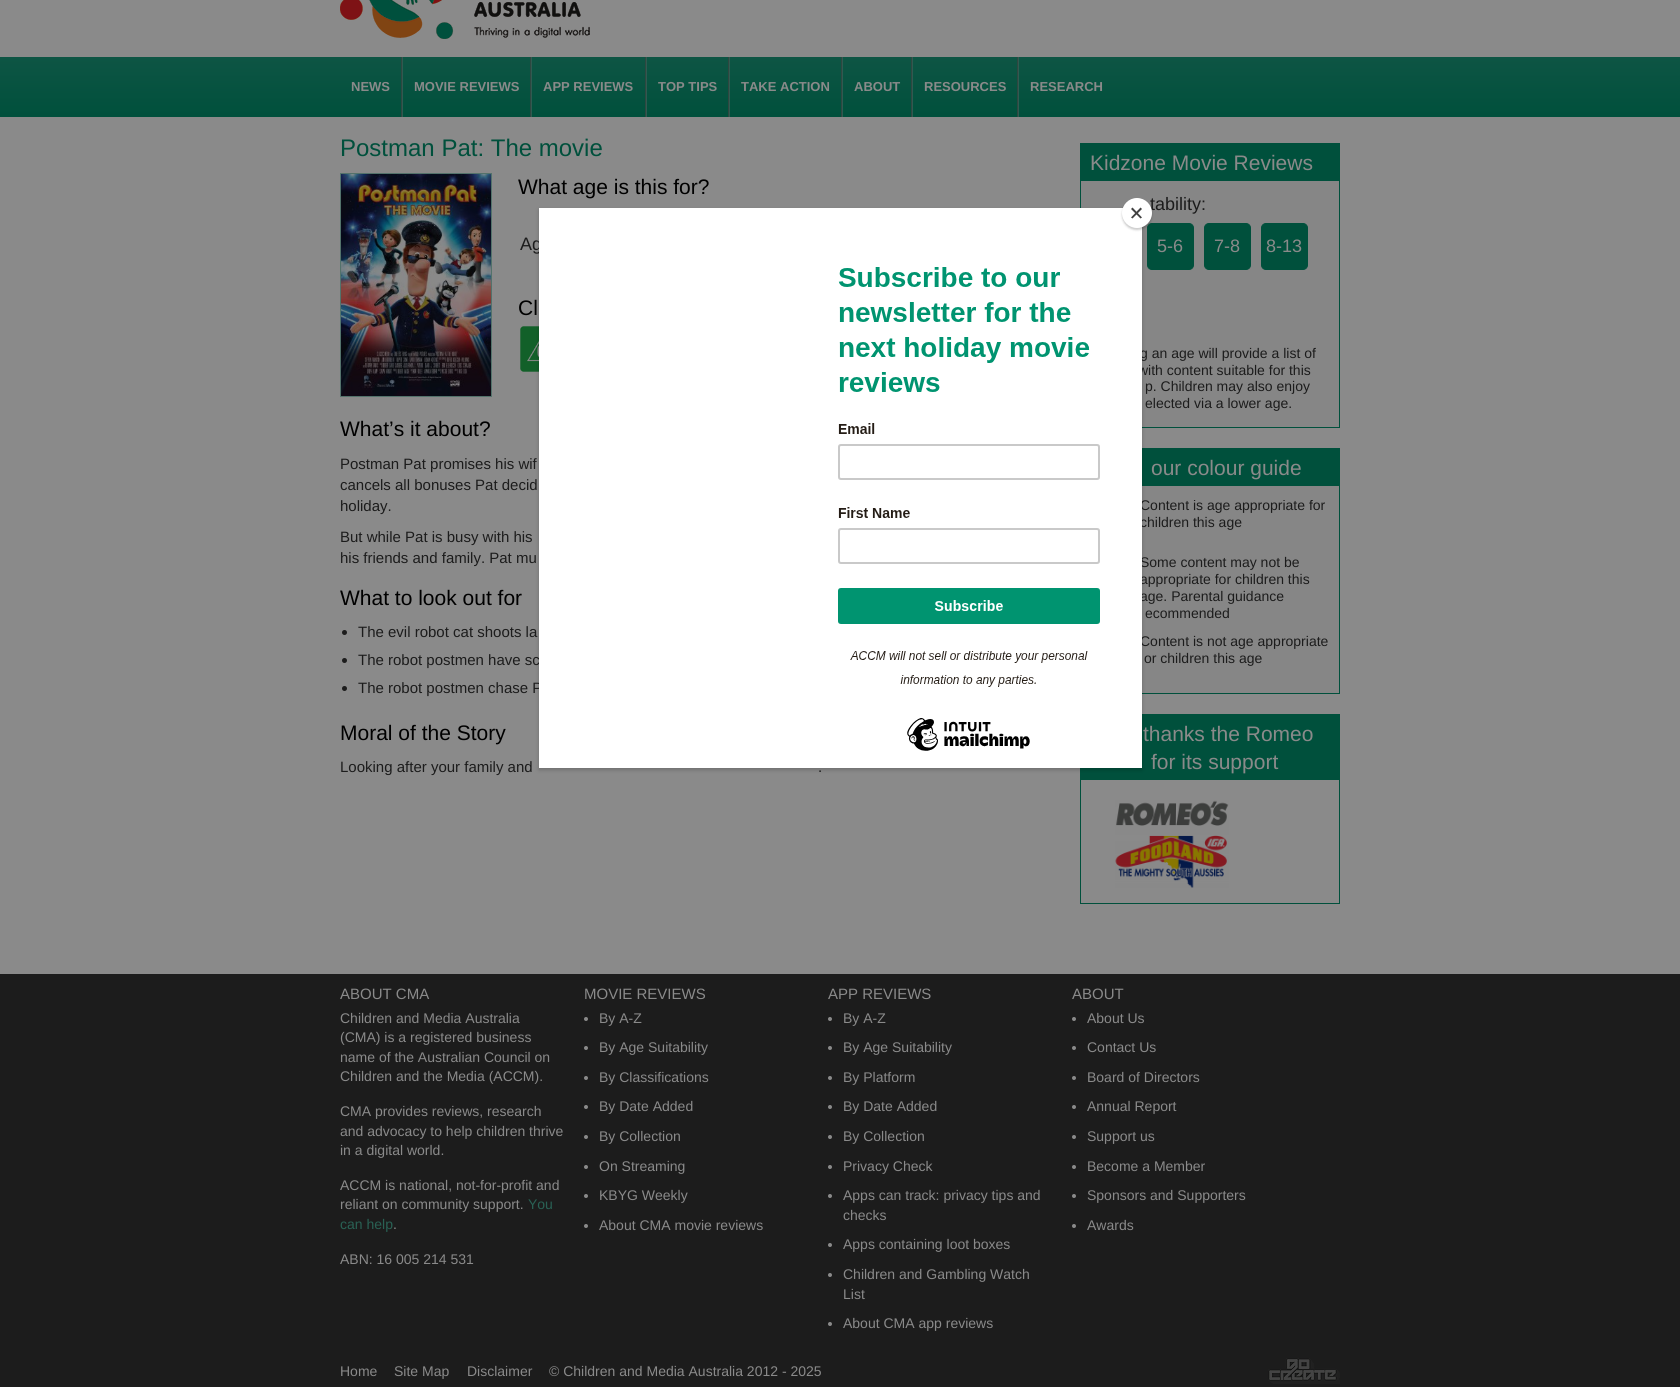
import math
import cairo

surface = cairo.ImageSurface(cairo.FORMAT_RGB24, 1680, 1387)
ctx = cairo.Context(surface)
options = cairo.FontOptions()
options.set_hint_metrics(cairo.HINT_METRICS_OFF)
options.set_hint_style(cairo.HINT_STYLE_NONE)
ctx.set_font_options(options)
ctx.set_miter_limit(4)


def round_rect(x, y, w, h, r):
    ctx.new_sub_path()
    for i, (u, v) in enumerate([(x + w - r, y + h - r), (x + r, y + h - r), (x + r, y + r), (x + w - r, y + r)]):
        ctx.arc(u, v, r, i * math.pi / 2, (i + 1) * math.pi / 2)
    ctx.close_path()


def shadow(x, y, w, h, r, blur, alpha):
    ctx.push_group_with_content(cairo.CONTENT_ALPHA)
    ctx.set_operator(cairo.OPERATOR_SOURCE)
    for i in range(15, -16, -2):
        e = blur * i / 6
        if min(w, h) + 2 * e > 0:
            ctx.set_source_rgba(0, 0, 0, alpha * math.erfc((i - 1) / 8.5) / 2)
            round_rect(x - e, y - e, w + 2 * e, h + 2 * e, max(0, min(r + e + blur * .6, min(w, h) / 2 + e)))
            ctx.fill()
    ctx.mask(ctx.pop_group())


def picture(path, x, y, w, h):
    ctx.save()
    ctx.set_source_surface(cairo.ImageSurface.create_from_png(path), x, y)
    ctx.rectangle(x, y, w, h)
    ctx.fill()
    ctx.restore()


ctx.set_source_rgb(0.541, 0.541, 0.541)
ctx.paint()
picture("img1.png", 340, 0, 250, 39)
gradient = cairo.LinearGradient(840, 57, 840, 117)
gradient.add_color_stop_rgba(0, 0.055, 0.333, 0.267, 1)
gradient.add_color_stop_rgba(1, 0, 0.314, 0.235, 1)
ctx.set_source(gradient)
ctx.rectangle(0, 57, 1680, 60)
ctx.fill()
ctx.set_source_rgb(0.18, 0.278, 0.251)
ctx.rectangle(401, 57, 1, 60)
ctx.fill()
ctx.select_font_face("Liberation Sans", cairo.FONT_SLANT_NORMAL, cairo.FONT_WEIGHT_BOLD)
ctx.set_font_size(13)
ctx.set_source_rgb(0.541, 0.541, 0.541)
ctx.move_to(351, 91)
ctx.show_text("NEWS")
ctx.set_source_rgb(0.18, 0.278, 0.251)
ctx.rectangle(530, 57, 1, 60)
ctx.fill()
ctx.set_source_rgb(0.188, 0.357, 0.318)
ctx.rectangle(402, 57, 1, 60)
ctx.fill()
ctx.set_source_rgb(0.541, 0.541, 0.541)
ctx.move_to(414, 91)
ctx.show_text("MOVIE REVIEWS")
ctx.set_source_rgb(0.18, 0.278, 0.251)
ctx.rectangle(645, 57, 1, 60)
ctx.fill()
ctx.set_source_rgb(0.188, 0.357, 0.318)
ctx.rectangle(531, 57, 1, 60)
ctx.fill()
ctx.set_source_rgb(0.541, 0.541, 0.541)
ctx.move_to(543, 91)
ctx.show_text("APP REVIEWS")
ctx.set_source_rgb(0.18, 0.278, 0.251)
ctx.rectangle(728, 57, 1, 60)
ctx.fill()
ctx.set_source_rgb(0.188, 0.357, 0.318)
ctx.rectangle(646, 57, 1, 60)
ctx.fill()
ctx.set_source_rgb(0.541, 0.541, 0.541)
ctx.move_to(658, 91)
ctx.show_text("TOP TIPS")
ctx.set_source_rgb(0.18, 0.278, 0.251)
ctx.rectangle(841, 57, 1, 60)
ctx.fill()
ctx.set_source_rgb(0.188, 0.357, 0.318)
ctx.rectangle(729, 57, 1, 60)
ctx.fill()
ctx.set_source_rgb(0.541, 0.541, 0.541)
ctx.move_to(741, 91)
ctx.show_text("TAKE ACTION")
ctx.set_source_rgb(0.18, 0.278, 0.251)
ctx.rectangle(911, 57, 1, 60)
ctx.fill()
ctx.set_source_rgb(0.188, 0.357, 0.318)
ctx.rectangle(842, 57, 1, 60)
ctx.fill()
ctx.set_source_rgb(0.541, 0.541, 0.541)
ctx.move_to(854, 91)
ctx.show_text("ABOUT")
ctx.set_source_rgb(0.18, 0.278, 0.251)
ctx.rectangle(1017, 57, 1, 60)
ctx.fill()
ctx.set_source_rgb(0.188, 0.357, 0.318)
ctx.rectangle(912, 57, 1, 60)
ctx.fill()
ctx.set_source_rgb(0.541, 0.541, 0.541)
ctx.move_to(924, 91)
ctx.show_text("RESOURCES")
ctx.set_source_rgb(0.188, 0.357, 0.318)
ctx.rectangle(1018, 57, 1, 60)
ctx.fill()
ctx.set_source_rgb(0.541, 0.541, 0.541)
ctx.move_to(1030, 91)
ctx.show_text("RESEARCH")
ctx.select_font_face("Liberation Sans")
ctx.set_font_size(24)
ctx.set_source_rgb(0, 0.314, 0.235)
ctx.move_to(340, 156)
ctx.show_text("Postman Pat: The movie")
ctx.rectangle(340.5, 173.5, 151, 223)
ctx.set_source_rgb(0.325, 0.447, 0.42)
ctx.set_line_width(1)
ctx.stroke()
picture("img2.png", 341, 174, 150, 222)
ctx.set_font_size(21)
ctx.set_source_rgb(0, 0, 0)
ctx.move_to(518, 194)
ctx.show_text("What age is this for?")
ctx.set_font_size(18)
ctx.set_source_rgb(0.11, 0.11, 0.11)
ctx.move_to(520, 250)
ctx.show_text("Ag")
ctx.set_font_size(21)
ctx.set_source_rgb(0, 0, 0)
ctx.move_to(518, 315)
ctx.show_text("Cl")
picture("img3.png", 520, 326, 19, 46)
ctx.move_to(340, 436)
ctx.show_text("What’s it about?")
ctx.set_font_size(15)
ctx.set_source_rgb(0.11, 0.11, 0.11)
ctx.move_to(340, 469)
ctx.show_text("Postman Pat promises his wif")
ctx.move_to(340, 490)
ctx.show_text("cancels all bonuses Pat decid")
ctx.move_to(340, 511)
ctx.show_text("holiday.")
ctx.move_to(340, 542)
ctx.show_text("But while Pat is busy with his")
ctx.move_to(340, 563)
ctx.show_text("his friends and family. Pat mu")
ctx.set_font_size(21)
ctx.set_source_rgb(0, 0, 0)
ctx.move_to(340, 605)
ctx.show_text("What to look out for")
ctx.set_source_rgb(0.11, 0.11, 0.11)
ctx.new_path()
ctx.arc(344.5, 632.5, 2.5, 0, 2 * math.pi)
ctx.fill()
ctx.set_font_size(15)
ctx.move_to(358, 637)
ctx.show_text("The evil robot cat shoots la")
ctx.new_path()
ctx.arc(344.5, 660.5, 2.5, 0, 2 * math.pi)
ctx.fill()
ctx.move_to(358, 665)
ctx.show_text("The robot postmen have sc")
ctx.new_path()
ctx.arc(344.5, 688.5, 2.5, 0, 2 * math.pi)
ctx.fill()
ctx.move_to(358, 693)
ctx.show_text("The robot postmen chase P")
ctx.set_font_size(21)
ctx.set_source_rgb(0, 0, 0)
ctx.move_to(340, 740)
ctx.show_text("Moral of the Story")
ctx.set_font_size(15)
ctx.set_source_rgb(0.11, 0.11, 0.11)
ctx.move_to(340, 772)
ctx.show_text("Looking after your family and")
ctx.move_to(818, 772)
ctx.show_text(".")
ctx.set_source_rgb(0.525, 0.525, 0.525)
ctx.rectangle(1081, 181, 258, 246)
ctx.fill()
ctx.rectangle(1080.5, 143.5, 259, 284)
ctx.set_source_rgb(0, 0.314, 0.235)
ctx.stroke()
ctx.rectangle(1081, 144, 258, 37)
ctx.fill()
ctx.set_font_size(21)
ctx.set_source_rgb(0.541, 0.541, 0.541)
ctx.move_to(1090, 170)
ctx.show_text("Kidzone Movie Reviews")
ctx.set_font_size(18)
ctx.set_source_rgb(0.11, 0.11, 0.11)
ctx.move_to(1150, 210)
ctx.show_text("tability:")
ctx.set_source_rgb(0, 0.314, 0.235)
round_rect(1147.5, 223.5, 46, 46, 4.5)
ctx.fill_preserve()
ctx.stroke()
ctx.set_source_rgb(0.541, 0.541, 0.541)
ctx.move_to(1157, 252)
ctx.show_text("5-6")
ctx.set_source_rgb(0, 0.314, 0.235)
round_rect(1204.5, 223.5, 46, 46, 4.5)
ctx.fill_preserve()
ctx.stroke()
ctx.set_source_rgb(0.541, 0.541, 0.541)
ctx.move_to(1214, 252)
ctx.show_text("7-8")
ctx.set_source_rgb(0, 0.314, 0.235)
round_rect(1261.5, 223.5, 46, 46, 4.5)
ctx.fill_preserve()
ctx.stroke()
ctx.set_source_rgb(0.541, 0.541, 0.541)
ctx.move_to(1266, 252)
ctx.show_text("8-13")
ctx.set_font_size(14)
ctx.set_source_rgb(0.11, 0.11, 0.11)
ctx.move_to(1140, 358)
ctx.show_text("g an age will provide a list of")
ctx.move_to(1138, 375)
ctx.show_text("with content suitable for this")
ctx.move_to(1145, 391)
ctx.show_text("p. Children may also enjoy")
ctx.move_to(1145, 408)
ctx.show_text("elected via a lower age.")
ctx.set_source_rgb(0.525, 0.525, 0.525)
ctx.rectangle(1142, 486, 197, 207)
ctx.fill()
ctx.rectangle(1080.5, 448.5, 259, 245)
ctx.set_source_rgb(0, 0.314, 0.235)
ctx.stroke()
ctx.rectangle(1142, 449, 197, 37)
ctx.fill()
ctx.set_font_size(21)
ctx.set_source_rgb(0.541, 0.541, 0.541)
ctx.move_to(1151, 475)
ctx.show_text("our colour guide")
ctx.save()
ctx.rectangle(1090, 500, 240, 42)
ctx.clip()
ctx.set_font_size(14)
ctx.set_source_rgb(0.11, 0.11, 0.11)
ctx.move_to(1140, 510)
ctx.show_text("Content is age appropriate for")
ctx.restore()
ctx.set_font_size(14)
ctx.set_source_rgb(0.11, 0.11, 0.11)
ctx.move_to(1140, 527)
ctx.show_text("children this age")
ctx.move_to(1140, 567)
ctx.show_text("Some content may not be")
ctx.move_to(1140, 584)
ctx.show_text("appropriate for children this")
ctx.move_to(1140, 601)
ctx.show_text("age. Parental guidance")
ctx.move_to(1145, 618)
ctx.show_text("ecommended")
ctx.move_to(1140, 646)
ctx.show_text("Content is not age appropriate")
ctx.move_to(1144, 663)
ctx.show_text("or children this age")
ctx.rectangle(1080.5, 714.5, 259, 189)
ctx.set_source_rgb(0, 0.314, 0.235)
ctx.stroke()
ctx.rectangle(1081, 715, 258, 65)
ctx.fill()
ctx.set_font_size(21)
ctx.set_source_rgb(0.541, 0.541, 0.541)
ctx.move_to(1143, 741)
ctx.show_text("thanks the Romeo")
ctx.move_to(1151, 769)
ctx.show_text("for its support")
picture("img4.png", 1115, 800, 114, 88)
ctx.set_source_rgb(0.11, 0.11, 0.11)
ctx.rectangle(0, 974, 1680, 413)
ctx.fill()
ctx.set_font_size(15)
ctx.set_source_rgb(0.541, 0.541, 0.541)
ctx.move_to(340, 999)
ctx.show_text("ABOUT CMA")
ctx.set_font_size(14)
ctx.move_to(340, 1023)
ctx.show_text("Children and Media Australia")
ctx.move_to(340, 1042)
ctx.show_text("(CMA) is a registered business")
ctx.move_to(340, 1062)
ctx.show_text("name of the Australian Council on")
ctx.move_to(340, 1081)
ctx.show_text("Children and the Media (ACCM).")
ctx.move_to(340, 1116)
ctx.show_text("CMA provides reviews, research")
ctx.move_to(340, 1136)
ctx.show_text("and advocacy to help children thrive")
ctx.move_to(340, 1155)
ctx.show_text("in a digital world.")
ctx.move_to(340, 1190)
ctx.show_text("ACCM is national, not-for-profit and")
ctx.move_to(340, 1209)
ctx.show_text("reliant on community support.")
ctx.set_source_rgb(0.161, 0.38, 0.329)
ctx.move_to(528, 1209)
ctx.show_text("You")
ctx.move_to(340, 1229)
ctx.show_text("can help")
ctx.set_source_rgb(0.541, 0.541, 0.541)
ctx.move_to(393, 1229)
ctx.show_text(".")
ctx.move_to(340, 1264)
ctx.show_text("ABN: 16 005 214 531")
ctx.set_font_size(15)
ctx.move_to(584, 999)
ctx.show_text("MOVIE REVIEWS")
ctx.new_path()
ctx.arc(586, 1019, 2, 0, 2 * math.pi)
ctx.fill()
ctx.set_font_size(14)
ctx.move_to(599, 1023)
ctx.show_text("By A-Z")
ctx.new_path()
ctx.arc(586, 1048, 2, 0, 2 * math.pi)
ctx.fill()
ctx.move_to(599, 1052)
ctx.show_text("By Age Suitability")
ctx.new_path()
ctx.arc(586, 1078, 2, 0, 2 * math.pi)
ctx.fill()
ctx.move_to(599, 1082)
ctx.show_text("By Classifications")
ctx.new_path()
ctx.arc(586, 1107, 2, 0, 2 * math.pi)
ctx.fill()
ctx.move_to(599, 1111)
ctx.show_text("By Date Added")
ctx.new_path()
ctx.arc(586, 1137, 2, 0, 2 * math.pi)
ctx.fill()
ctx.move_to(599, 1141)
ctx.show_text("By Collection")
ctx.new_path()
ctx.arc(586, 1167, 2, 0, 2 * math.pi)
ctx.fill()
ctx.move_to(599, 1171)
ctx.show_text("On Streaming")
ctx.new_path()
ctx.arc(586, 1196, 2, 0, 2 * math.pi)
ctx.fill()
ctx.move_to(599, 1200)
ctx.show_text("KBYG Weekly")
ctx.new_path()
ctx.arc(586, 1226, 2, 0, 2 * math.pi)
ctx.fill()
ctx.move_to(599, 1230)
ctx.show_text("About CMA movie reviews")
ctx.set_font_size(15)
ctx.move_to(828, 999)
ctx.show_text("APP REVIEWS")
ctx.new_path()
ctx.arc(830, 1019, 2, 0, 2 * math.pi)
ctx.fill()
ctx.set_font_size(14)
ctx.move_to(843, 1023)
ctx.show_text("By A-Z")
ctx.new_path()
ctx.arc(830, 1048, 2, 0, 2 * math.pi)
ctx.fill()
ctx.move_to(843, 1052)
ctx.show_text("By Age Suitability")
ctx.new_path()
ctx.arc(830, 1078, 2, 0, 2 * math.pi)
ctx.fill()
ctx.move_to(843, 1082)
ctx.show_text("By Platform")
ctx.new_path()
ctx.arc(830, 1107, 2, 0, 2 * math.pi)
ctx.fill()
ctx.move_to(843, 1111)
ctx.show_text("By Date Added")
ctx.new_path()
ctx.arc(830, 1137, 2, 0, 2 * math.pi)
ctx.fill()
ctx.move_to(843, 1141)
ctx.show_text("By Collection")
ctx.new_path()
ctx.arc(830, 1167, 2, 0, 2 * math.pi)
ctx.fill()
ctx.move_to(843, 1171)
ctx.show_text("Privacy Check")
ctx.new_path()
ctx.arc(830, 1196, 2, 0, 2 * math.pi)
ctx.fill()
ctx.move_to(843, 1200)
ctx.show_text("Apps can track: privacy tips and")
ctx.move_to(843, 1220)
ctx.show_text("checks")
ctx.new_path()
ctx.arc(830, 1245, 2, 0, 2 * math.pi)
ctx.fill()
ctx.move_to(843, 1249)
ctx.show_text("Apps containing loot boxes")
ctx.new_path()
ctx.arc(830, 1275, 2, 0, 2 * math.pi)
ctx.fill()
ctx.move_to(843, 1279)
ctx.show_text("Children and Gambling Watch")
ctx.move_to(843, 1299)
ctx.show_text("List")
ctx.new_path()
ctx.arc(830, 1324, 2, 0, 2 * math.pi)
ctx.fill()
ctx.move_to(843, 1328)
ctx.show_text("About CMA app reviews")
ctx.set_font_size(15)
ctx.move_to(1072, 999)
ctx.show_text("ABOUT")
ctx.new_path()
ctx.arc(1074, 1019, 2, 0, 2 * math.pi)
ctx.fill()
ctx.set_font_size(14)
ctx.move_to(1087, 1023)
ctx.show_text("About Us")
ctx.new_path()
ctx.arc(1074, 1048, 2, 0, 2 * math.pi)
ctx.fill()
ctx.move_to(1087, 1052)
ctx.show_text("Contact Us")
ctx.new_path()
ctx.arc(1074, 1078, 2, 0, 2 * math.pi)
ctx.fill()
ctx.move_to(1087, 1082)
ctx.show_text("Board of Directors")
ctx.new_path()
ctx.arc(1074, 1107, 2, 0, 2 * math.pi)
ctx.fill()
ctx.move_to(1087, 1111)
ctx.show_text("Annual Report")
ctx.new_path()
ctx.arc(1074, 1137, 2, 0, 2 * math.pi)
ctx.fill()
ctx.move_to(1087, 1141)
ctx.show_text("Support us")
ctx.new_path()
ctx.arc(1074, 1167, 2, 0, 2 * math.pi)
ctx.fill()
ctx.move_to(1087, 1171)
ctx.show_text("Become a Member")
ctx.new_path()
ctx.arc(1074, 1196, 2, 0, 2 * math.pi)
ctx.fill()
ctx.move_to(1087, 1200)
ctx.show_text("Sponsors and Supporters")
ctx.new_path()
ctx.arc(1074, 1226, 2, 0, 2 * math.pi)
ctx.fill()
ctx.move_to(1087, 1230)
ctx.show_text("Awards")
ctx.move_to(340, 1376)
ctx.show_text("Home")
ctx.move_to(394, 1376)
ctx.show_text("Site Map")
ctx.move_to(467, 1376)
ctx.show_text("Disclaimer")
ctx.move_to(549, 1376)
ctx.show_text("© Children and Media Australia 2012 - 2025")
picture("img5.png", 1268, 1358, 72, 26)
ctx.set_source_rgb(0, 0, 0)
shadow(539, 210, 603, 560, 0, 2, 0.2)
picture("img6.png", 539, 208, 603, 560)
shadow(1122, 200, 30, 30, 15, 1, 0.2)
ctx.set_source_rgb(1, 1, 1)
ctx.arc(1137, 213, 15, 0, 2 * math.pi)
ctx.fill()
ctx.set_source_rgb(0.255, 0.255, 0.255)
ctx.new_path()
ctx.move_to(1140.5, 207.5)
ctx.line_to(1142, 209)
ctx.line_to(1132.5, 218.5)
ctx.line_to(1131, 217.5)
ctx.close_path()
ctx.fill()
ctx.new_path()
ctx.move_to(1131, 209)
ctx.line_to(1132.5, 207.5)
ctx.line_to(1142, 217.5)
ctx.line_to(1140.5, 218.5)
ctx.close_path()
ctx.fill()
surface.write_to_png("page.png")
